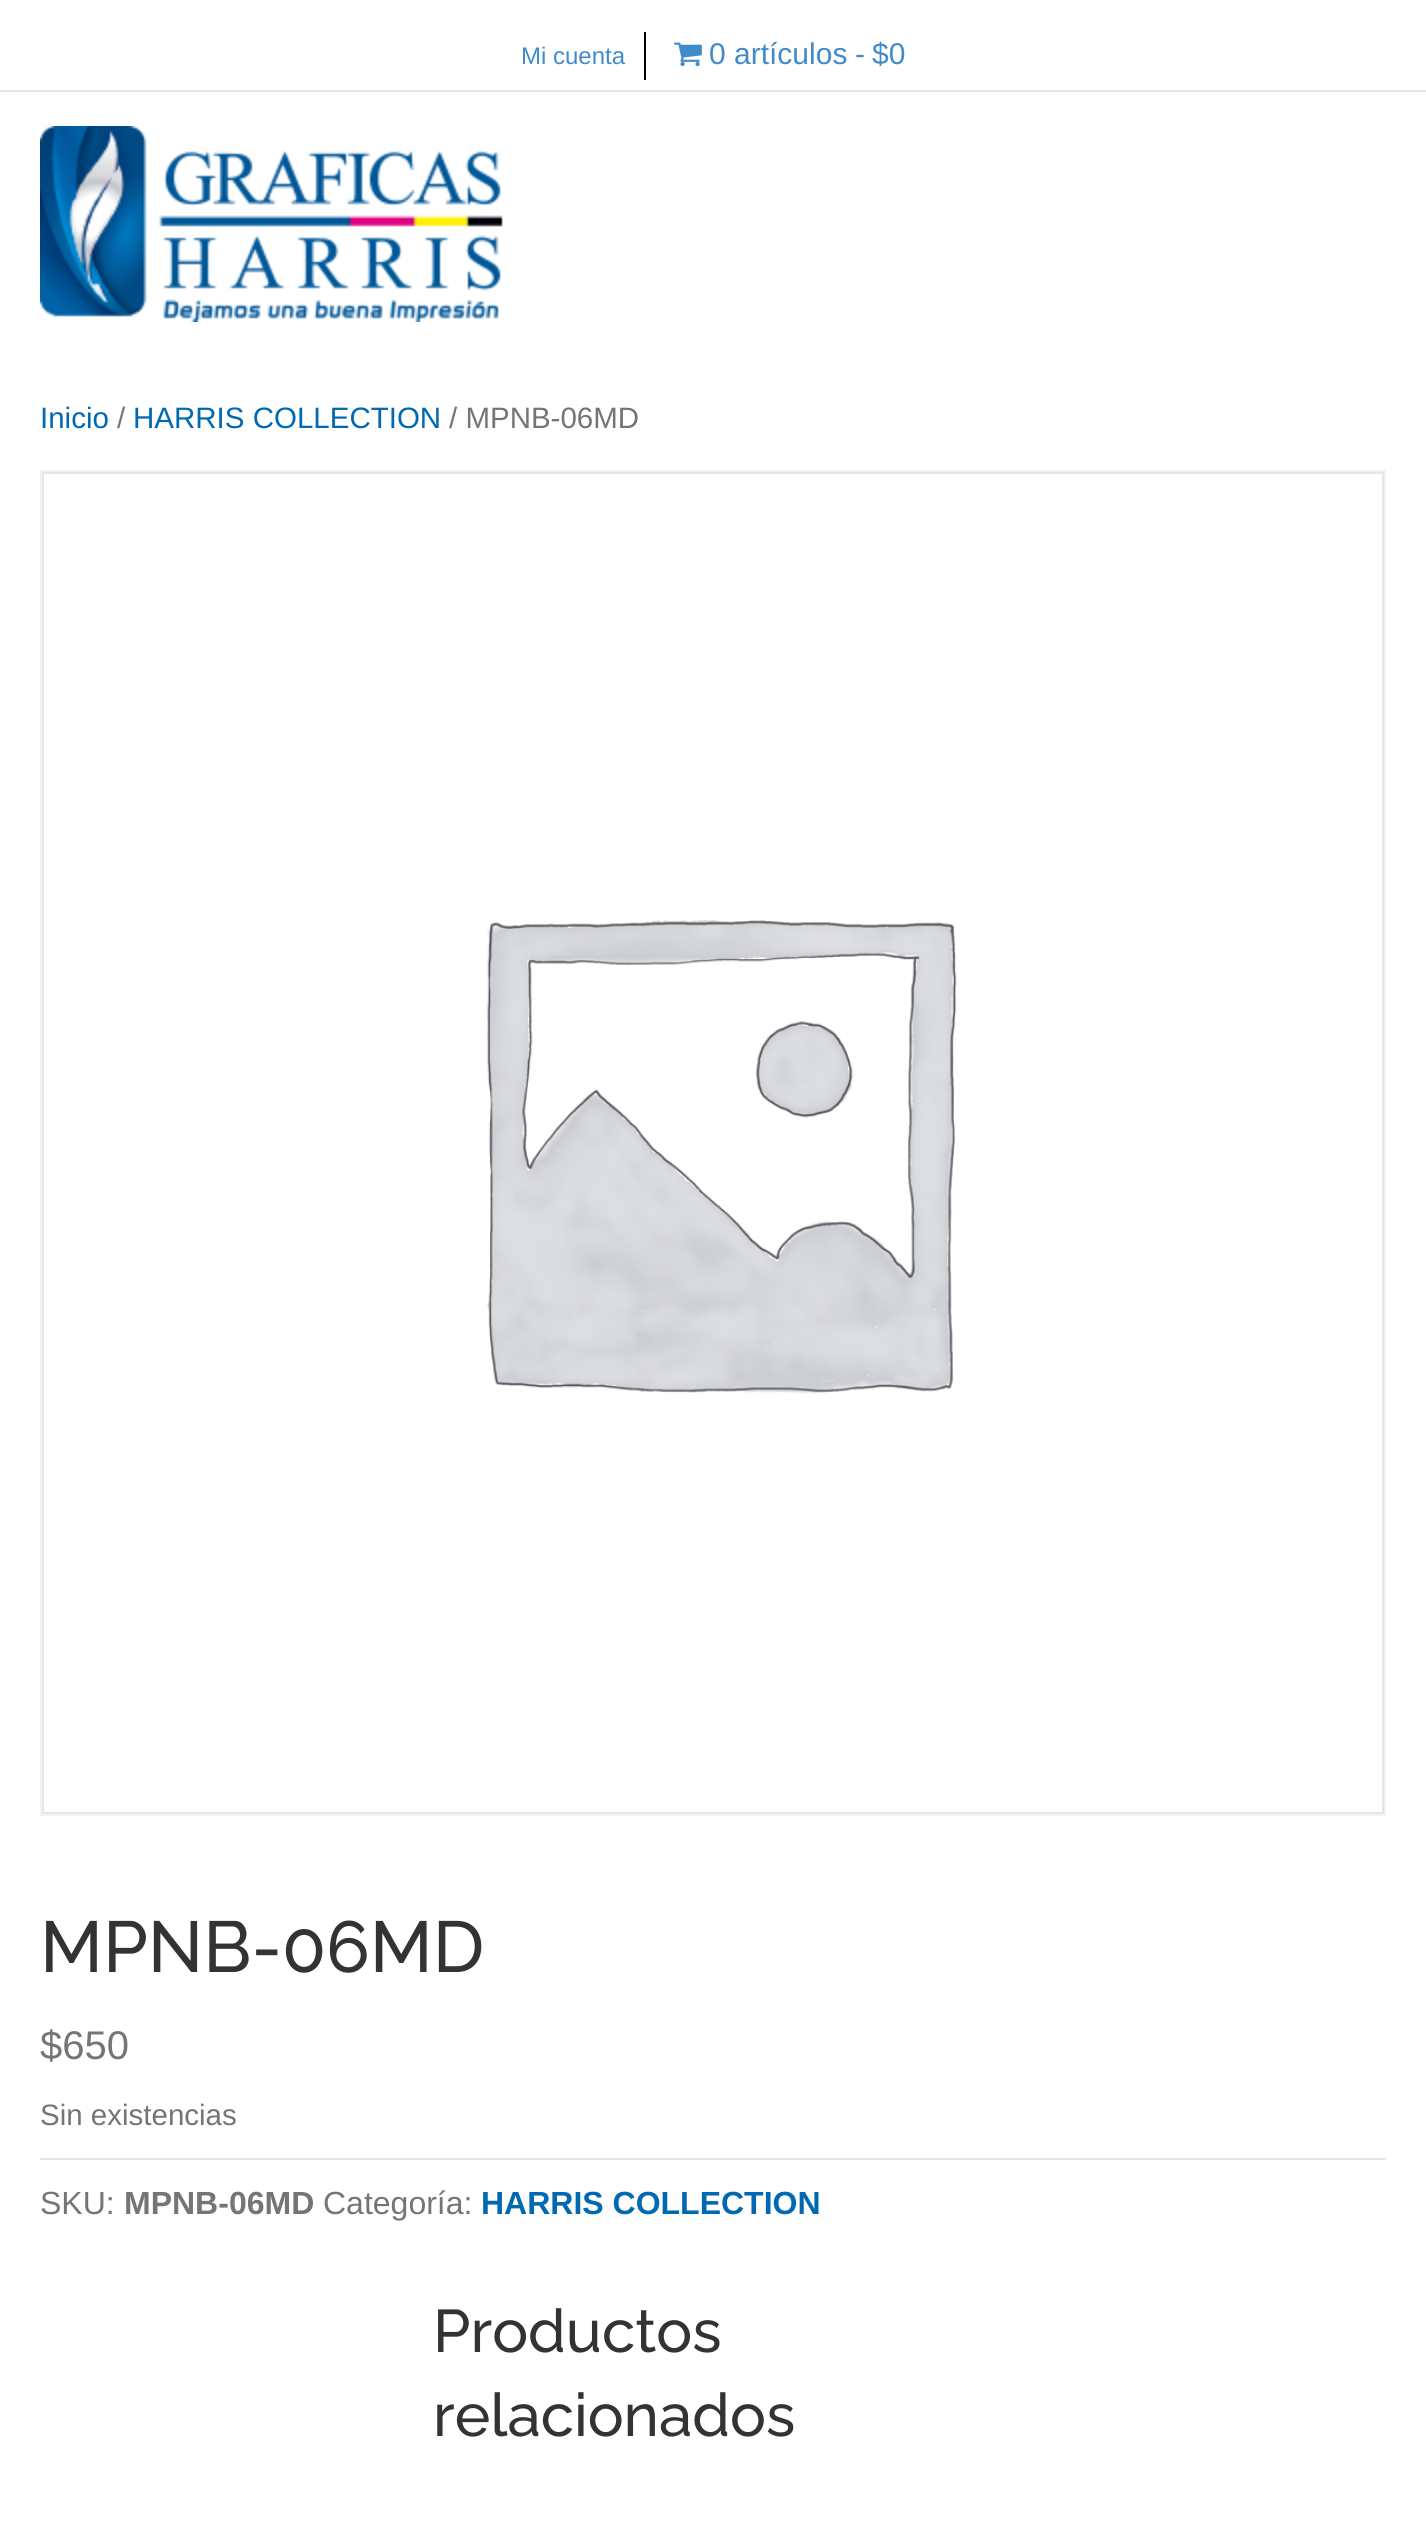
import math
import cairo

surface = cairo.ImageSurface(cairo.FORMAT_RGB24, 1426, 2539)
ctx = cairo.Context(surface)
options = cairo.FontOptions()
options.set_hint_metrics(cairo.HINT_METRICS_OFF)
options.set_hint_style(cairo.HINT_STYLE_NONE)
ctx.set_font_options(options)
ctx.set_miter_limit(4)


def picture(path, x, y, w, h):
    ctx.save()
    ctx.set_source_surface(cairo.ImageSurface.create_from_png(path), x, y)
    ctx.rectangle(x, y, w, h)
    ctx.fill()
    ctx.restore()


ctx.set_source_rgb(1, 1, 1)
ctx.paint()
ctx.set_source_rgb(0.902, 0.902, 0.902)
ctx.rectangle(0, 90, 1426, 2)
ctx.fill()
ctx.set_source_rgb(0, 0, 0)
ctx.rectangle(644, 32, 2, 48)
ctx.fill()
ctx.select_font_face("Liberation Sans")
ctx.set_font_size(24)
ctx.set_source_rgb(0.259, 0.545, 0.792)
ctx.move_to(521, 64)
ctx.show_text("Mi cuenta")
picture("img1.png", 674, 42, 28, 25)
ctx.set_font_size(30)
ctx.move_to(709, 64)
ctx.show_text("0 artículos")
ctx.move_to(855, 64)
ctx.show_text("-")
ctx.move_to(872, 64)
ctx.show_text("$0")
picture("img2.png", 40, 126, 463, 196)
ctx.set_font_size(29.5)
ctx.set_source_rgb(0, 0.412, 0.698)
ctx.move_to(40, 428)
ctx.show_text("Inicio")
ctx.set_source_rgb(0.459, 0.459, 0.459)
ctx.move_to(117, 428)
ctx.show_text("/")
ctx.set_source_rgb(0, 0.412, 0.698)
ctx.move_to(133, 428)
ctx.show_text("HARRIS COLLECTION")
ctx.set_source_rgb(0.459, 0.459, 0.459)
ctx.move_to(449, 428)
ctx.show_text("/ MPNB-06MD")
ctx.rectangle(41, 471, 1344, 1344)
ctx.set_source_rgb(0.949, 0.949, 0.949)
ctx.stroke()
ctx.rectangle(43, 473, 1340, 1340)
ctx.set_source_rgb(0.902, 0.902, 0.902)
ctx.stroke()
picture("img3.png", 486, 920, 471, 474)
ctx.select_font_face("Raleway Medium")
ctx.set_font_size(72)
ctx.set_source_rgb(0.2, 0.2, 0.2)
ctx.move_to(40, 1972)
ctx.show_text("MPNB-06MD")
ctx.select_font_face("Liberation Sans")
ctx.set_font_size(40)
ctx.set_source_rgb(0.459, 0.459, 0.459)
ctx.move_to(40, 2059)
ctx.show_text("$650")
ctx.set_font_size(29.5)
ctx.move_to(40, 2125)
ctx.show_text("Sin existencias")
ctx.set_source_rgb(0.902, 0.902, 0.902)
ctx.rectangle(40, 2158, 1346, 2)
ctx.fill()
ctx.set_font_size(32)
ctx.set_source_rgb(0.459, 0.459, 0.459)
ctx.move_to(40, 2214)
ctx.show_text("SKU:")
ctx.select_font_face("Liberation Sans", cairo.FONT_SLANT_NORMAL, cairo.FONT_WEIGHT_BOLD)
ctx.move_to(124, 2214)
ctx.show_text("MPNB-06MD")
ctx.select_font_face("Liberation Sans")
ctx.move_to(323, 2214)
ctx.show_text("Categoría:")
ctx.select_font_face("Liberation Sans", cairo.FONT_SLANT_NORMAL, cairo.FONT_WEIGHT_BOLD)
ctx.set_source_rgb(0, 0.412, 0.698)
ctx.move_to(481, 2214)
ctx.show_text("HARRIS COLLECTION")
ctx.select_font_face("Raleway Medium")
ctx.set_font_size(60)
ctx.set_source_rgb(0.2, 0.2, 0.2)
ctx.move_to(433, 2352)
ctx.show_text("Productos")
ctx.move_to(433, 2436)
ctx.show_text("relacionados")
surface.write_to_png("page.png")
